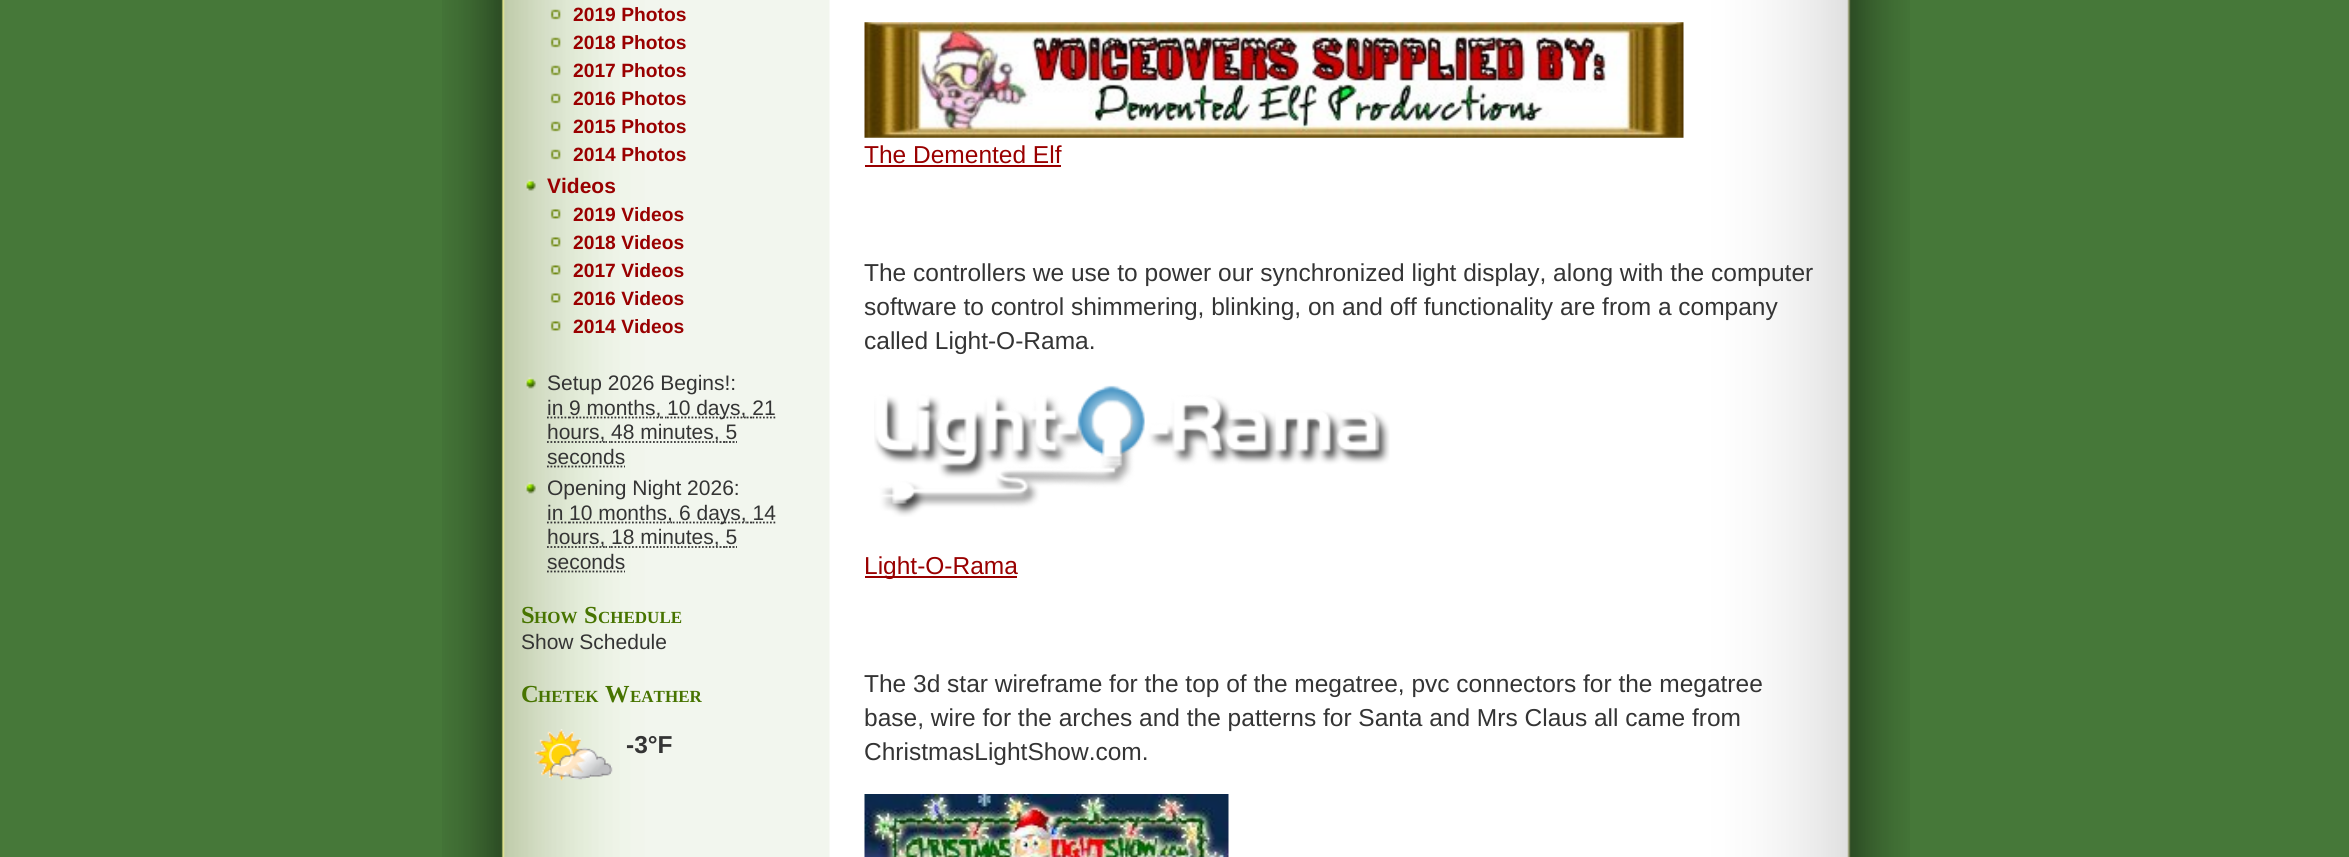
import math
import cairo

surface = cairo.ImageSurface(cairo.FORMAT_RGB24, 2349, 857)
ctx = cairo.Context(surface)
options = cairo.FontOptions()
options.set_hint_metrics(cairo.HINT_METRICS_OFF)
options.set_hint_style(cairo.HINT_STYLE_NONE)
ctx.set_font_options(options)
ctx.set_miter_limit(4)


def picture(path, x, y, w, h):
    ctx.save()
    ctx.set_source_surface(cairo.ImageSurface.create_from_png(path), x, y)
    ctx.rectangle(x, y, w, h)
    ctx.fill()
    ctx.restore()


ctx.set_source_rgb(0.275, 0.471, 0.224)
ctx.paint()
picture("img1.png", 442, 0, 1468, 857)
picture("img2.png", 550, 9, 11, 11)
ctx.select_font_face("Liberation Sans", cairo.FONT_SLANT_NORMAL, cairo.FONT_WEIGHT_BOLD)
ctx.set_font_size(19.25)
ctx.set_source_rgb(0.6, 0, 0)
ctx.move_to(573, 21)
ctx.show_text("2019 Photos")
picture("img2.png", 550, 37, 11, 11)
ctx.move_to(573, 49)
ctx.show_text("2018 Photos")
picture("img2.png", 550, 65, 11, 11)
ctx.move_to(573, 77)
ctx.show_text("2017 Photos")
picture("img2.png", 550, 93, 11, 11)
ctx.move_to(573, 105)
ctx.show_text("2016 Photos")
picture("img2.png", 550, 121, 11, 11)
ctx.move_to(573, 133)
ctx.show_text("2015 Photos")
picture("img2.png", 550, 149, 11, 11)
ctx.move_to(573, 161)
ctx.show_text("2014 Photos")
picture("img3.png", 525, 179, 11, 12)
ctx.set_font_size(21)
ctx.move_to(547, 193)
ctx.show_text("Videos")
picture("img4.png", 550, 209, 11, 10)
ctx.set_font_size(19.25)
ctx.move_to(573, 221)
ctx.show_text("2019 Videos")
picture("img4.png", 550, 237, 11, 10)
ctx.move_to(573, 249)
ctx.show_text("2018 Videos")
picture("img4.png", 550, 265, 11, 10)
ctx.move_to(573, 277)
ctx.show_text("2017 Videos")
picture("img4.png", 550, 293, 11, 10)
ctx.move_to(573, 305)
ctx.show_text("2016 Videos")
picture("img4.png", 550, 321, 11, 10)
ctx.move_to(573, 333)
ctx.show_text("2014 Videos")
picture("img5.png", 525, 377, 11, 12)
ctx.select_font_face("Liberation Sans")
ctx.set_font_size(21)
ctx.set_source_rgb(0.204, 0.204, 0.204)
ctx.move_to(547, 390)
ctx.show_text("Setup 2026 Begins!:")
ctx.move_to(547, 415)
ctx.show_text("in")
ctx.new_path()
ctx.move_to(569, 417.5)
ctx.line_to(661.5, 417.5)
ctx.set_line_width(1.8)
ctx.set_dash([1.75, 1.75])
ctx.stroke()
ctx.move_to(569, 415)
ctx.show_text("9 months,")
ctx.new_path()
ctx.move_to(547, 417.5)
ctx.line_to(569, 417.5)
ctx.stroke()
ctx.new_path()
ctx.move_to(667, 417.5)
ctx.line_to(746.5, 417.5)
ctx.stroke()
ctx.move_to(667, 415)
ctx.show_text("10 days, 21")
ctx.new_path()
ctx.move_to(661.5, 417.5)
ctx.line_to(663, 417.5)
ctx.move_to(665, 417.5)
ctx.line_to(666.5, 417.5)
ctx.set_dash([])
ctx.stroke()
ctx.new_path()
ctx.move_to(746.5, 417.5)
ctx.line_to(748.5, 417.5)
ctx.move_to(750, 417.5)
ctx.line_to(752, 417.5)
ctx.stroke()
ctx.new_path()
ctx.move_to(752.5, 417.5)
ctx.line_to(776, 417.5)
ctx.set_dash([1.75, 1.75])
ctx.stroke()
ctx.new_path()
ctx.move_to(547, 442)
ctx.line_to(605.5, 442)
ctx.stroke()
ctx.move_to(547, 439)
ctx.show_text("hours,")
ctx.new_path()
ctx.move_to(611, 442)
ctx.line_to(719.5, 442)
ctx.stroke()
ctx.move_to(611, 439)
ctx.show_text("48 minutes, 5")
ctx.new_path()
ctx.move_to(605.5, 442)
ctx.line_to(607, 442)
ctx.move_to(609, 442)
ctx.line_to(610.5, 442)
ctx.set_dash([])
ctx.stroke()
ctx.new_path()
ctx.move_to(719.5, 442)
ctx.line_to(721.5, 442)
ctx.move_to(723, 442)
ctx.line_to(725, 442)
ctx.move_to(725.5, 442)
ctx.line_to(727.5, 442)
ctx.move_to(729, 442)
ctx.line_to(731, 442)
ctx.move_to(732.5, 442)
ctx.line_to(734.5, 442)
ctx.move_to(736, 442)
ctx.line_to(737, 442)
ctx.stroke()
ctx.move_to(547, 464)
ctx.show_text("seconds")
ctx.new_path()
ctx.move_to(547, 466.5)
ctx.line_to(625, 466.5)
ctx.set_dash([1.75, 1.75])
ctx.stroke()
picture("img5.png", 525, 482, 11, 12)
ctx.move_to(547, 495)
ctx.show_text("Opening Night 2026:")
ctx.move_to(547, 520)
ctx.show_text("in")
ctx.new_path()
ctx.move_to(569, 522.5)
ctx.line_to(673, 522.5)
ctx.stroke()
ctx.move_to(569, 520)
ctx.show_text("10 months,")
ctx.new_path()
ctx.move_to(547, 522.5)
ctx.line_to(569, 522.5)
ctx.stroke()
ctx.new_path()
ctx.move_to(679, 522.5)
ctx.line_to(746.5, 522.5)
ctx.stroke()
ctx.move_to(679, 520)
ctx.show_text("6 days, 14")
ctx.new_path()
ctx.move_to(673, 522.5)
ctx.line_to(674.5, 522.5)
ctx.move_to(676.5, 522.5)
ctx.line_to(678, 522.5)
ctx.set_dash([])
ctx.stroke()
ctx.new_path()
ctx.move_to(746.5, 522.5)
ctx.line_to(748.5, 522.5)
ctx.move_to(750, 522.5)
ctx.line_to(752, 522.5)
ctx.stroke()
ctx.new_path()
ctx.move_to(752.5, 522.5)
ctx.line_to(776, 522.5)
ctx.set_dash([1.75, 1.75])
ctx.stroke()
ctx.new_path()
ctx.move_to(547, 547)
ctx.line_to(605.5, 547)
ctx.stroke()
ctx.move_to(547, 544)
ctx.show_text("hours,")
ctx.new_path()
ctx.move_to(605.5, 547)
ctx.line_to(607, 547)
ctx.move_to(609, 547)
ctx.line_to(610.5, 547)
ctx.set_dash([])
ctx.stroke()
ctx.new_path()
ctx.move_to(611, 547)
ctx.line_to(719.5, 547)
ctx.set_dash([1.75, 1.75])
ctx.stroke()
ctx.move_to(611, 544)
ctx.show_text("18 minutes, 5")
ctx.new_path()
ctx.move_to(719.5, 547)
ctx.line_to(721.5, 547)
ctx.move_to(723, 547)
ctx.line_to(725, 547)
ctx.move_to(725.5, 547)
ctx.line_to(727.5, 547)
ctx.move_to(729, 547)
ctx.line_to(731, 547)
ctx.move_to(732.5, 547)
ctx.line_to(734.5, 547)
ctx.move_to(736, 547)
ctx.line_to(737, 547)
ctx.set_dash([])
ctx.stroke()
ctx.move_to(547, 569)
ctx.show_text("seconds")
ctx.new_path()
ctx.move_to(547, 571.5)
ctx.line_to(625, 571.5)
ctx.set_dash([1.75, 1.75])
ctx.stroke()
ctx.select_font_face("Liberation Serif", cairo.FONT_SLANT_NORMAL, cairo.FONT_WEIGHT_BOLD)
ctx.set_font_size(24.5)
ctx.set_source_rgb(0.278, 0.455, 0)
ctx.move_to(521, 623)
ctx.show_text("S")
ctx.set_font_size(17)
ctx.move_to(534, 623)
ctx.show_text("HOW")
ctx.set_font_size(24.5)
ctx.move_to(584, 623)
ctx.show_text("S")
ctx.set_font_size(17)
ctx.move_to(598, 623)
ctx.show_text("CHEDULE")
ctx.select_font_face("Liberation Sans")
ctx.set_font_size(21)
ctx.set_source_rgb(0.204, 0.204, 0.204)
ctx.move_to(521, 649)
ctx.show_text("Show Schedule")
ctx.select_font_face("Liberation Serif", cairo.FONT_SLANT_NORMAL, cairo.FONT_WEIGHT_BOLD)
ctx.set_font_size(24.5)
ctx.set_source_rgb(0.278, 0.455, 0)
ctx.move_to(521, 702)
ctx.show_text("C")
ctx.set_font_size(17)
ctx.move_to(538, 702)
ctx.show_text("HETEK")
ctx.set_font_size(24.5)
ctx.move_to(605, 702)
ctx.show_text("W")
ctx.set_font_size(17)
ctx.move_to(630, 702)
ctx.show_text("EATHER")
picture("img6.png", 534, 729, 79, 52)
ctx.select_font_face("Liberation Sans", cairo.FONT_SLANT_NORMAL, cairo.FONT_WEIGHT_BOLD)
ctx.set_font_size(24.5)
ctx.set_source_rgb(0.204, 0.204, 0.204)
ctx.move_to(626, 753)
ctx.show_text("-3°F")
picture("img7.png", 864, 22, 820, 116)
ctx.select_font_face("Liberation Sans")
ctx.set_source_rgb(0.6, 0, 0)
ctx.move_to(864, 163)
ctx.show_text("The Demented Elf")
ctx.rectangle(865, 165, 196, 2)
ctx.fill()
ctx.set_source_rgb(0.204, 0.204, 0.204)
ctx.move_to(864, 281)
ctx.show_text("The controllers we use to power our synchronized light display, along with the computer")
ctx.move_to(864, 315)
ctx.show_text("software to control shimmering, blinking, on and off functionality are from a company")
ctx.move_to(864, 349)
ctx.show_text("called Light-O-Rama.")
picture("img8.png", 874, 385, 516, 132)
ctx.set_source_rgb(0.6, 0, 0)
ctx.rectangle(865, 576, 152, 2)
ctx.fill()
ctx.move_to(864, 574)
ctx.show_text("Light-O-Rama")
ctx.set_source_rgb(0.204, 0.204, 0.204)
ctx.move_to(864, 692)
ctx.show_text("The 3d star wireframe for the top of the megatree, pvc connectors for the megatree")
ctx.move_to(864, 726)
ctx.show_text("base, wire for the arches and the patterns for Santa and Mrs Claus all came from")
ctx.move_to(864, 760)
ctx.show_text("ChristmasLightShow.com.")
picture("img9.png", 864, 794, 365, 63)
surface.write_to_png("page.png")
